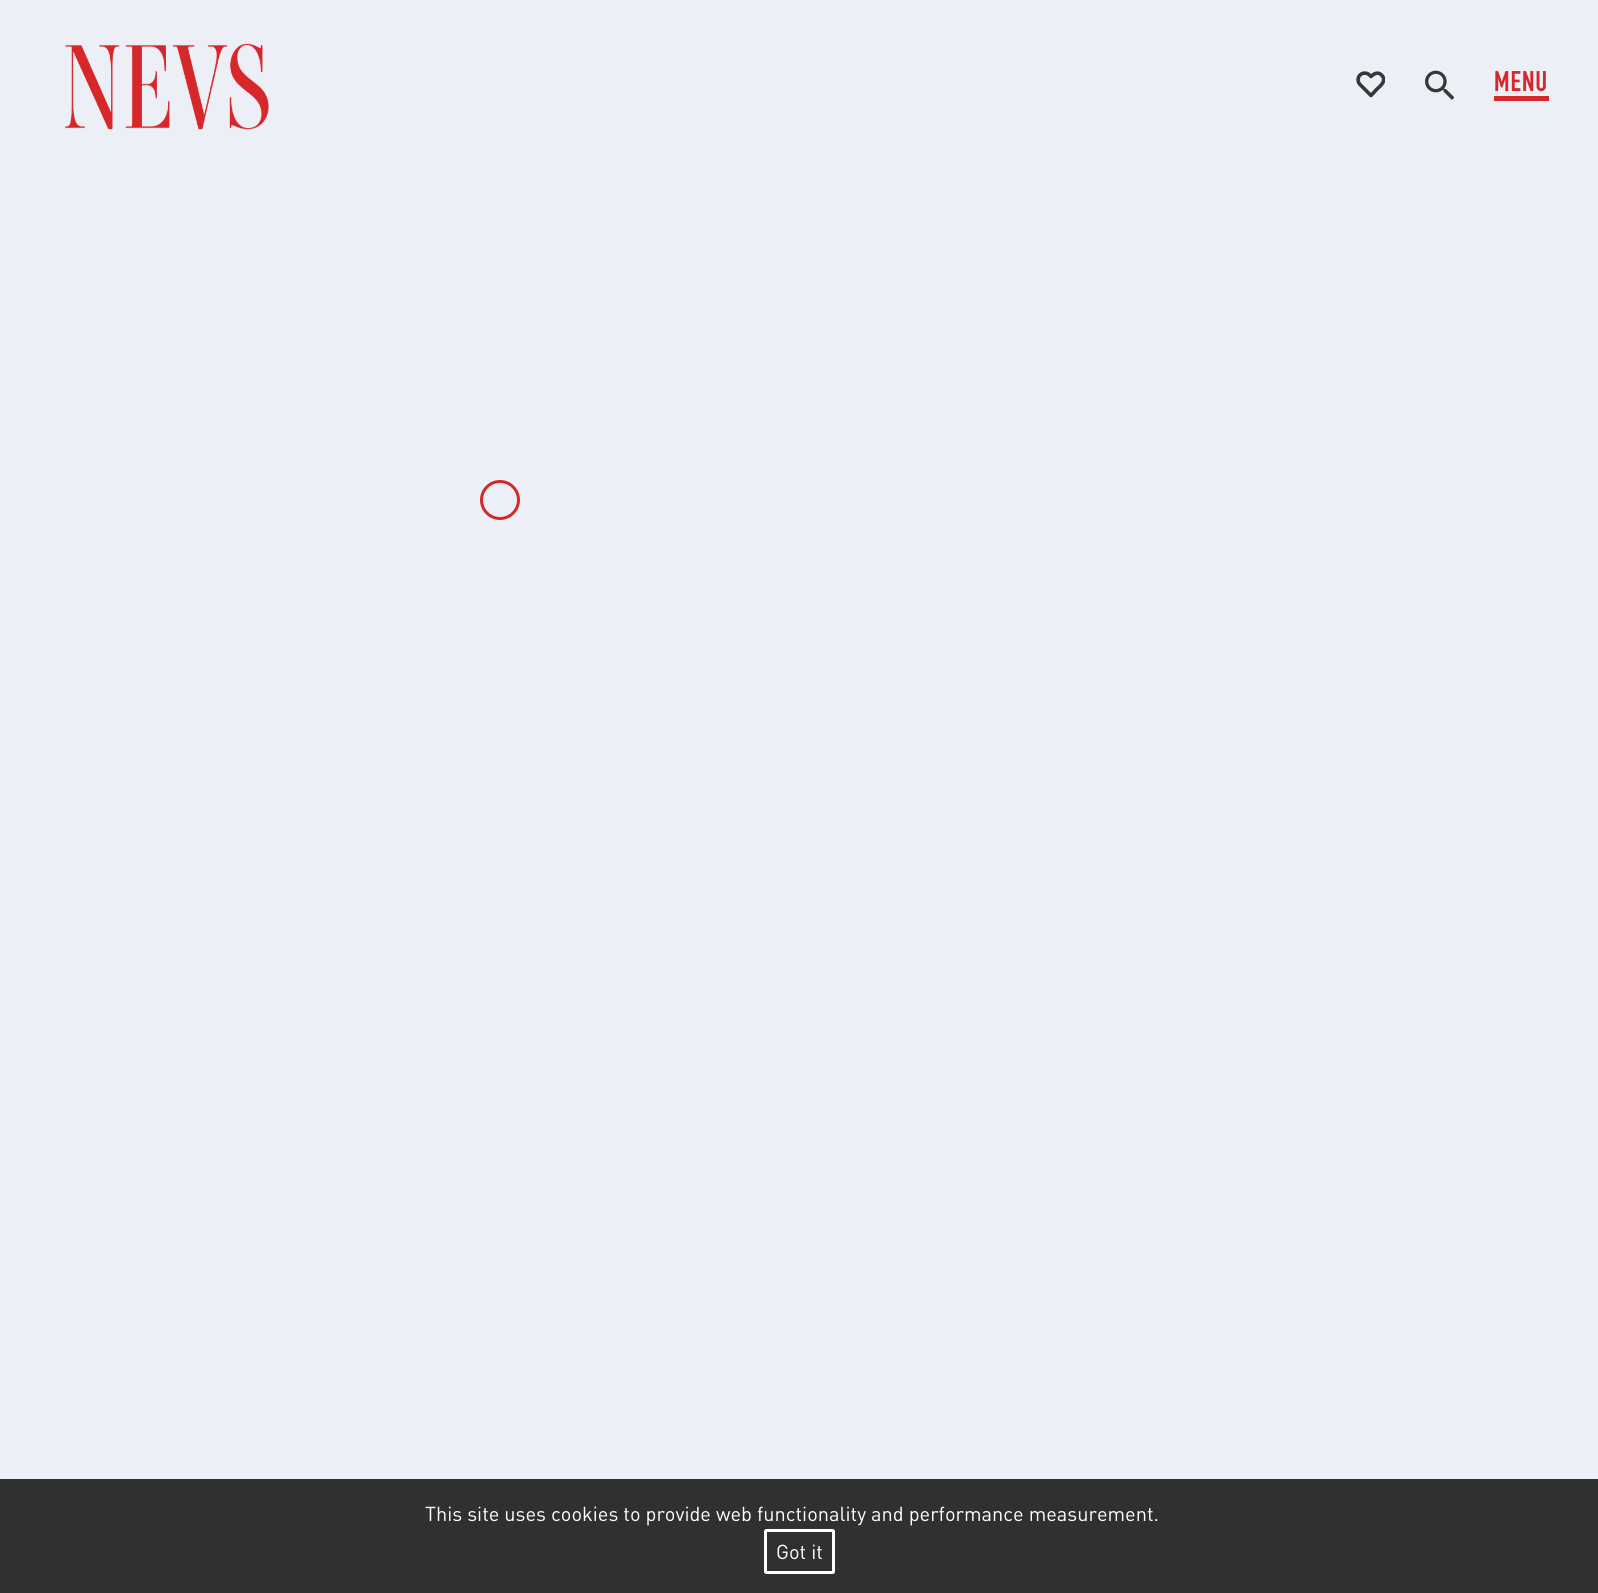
import math
import cairo

surface = cairo.ImageSurface(cairo.FORMAT_RGB24, 1598, 1593)
ctx = cairo.Context(surface)
options = cairo.FontOptions()
options.set_hint_metrics(cairo.HINT_METRICS_OFF)
options.set_hint_style(cairo.HINT_STYLE_NONE)
ctx.set_font_options(options)
ctx.set_miter_limit(4)


def spaced_text(x, y, s, letter, word):
    ctx.move_to(x, y)
    for ch in s:
        ctx.show_text(ch)
        ctx.rel_move_to(letter + word * (ch == ' '), 0)


def round_rect(x, y, w, h, r):
    ctx.new_sub_path()
    for i, (u, v) in enumerate([(x + w - r, y + h - r), (x + r, y + h - r), (x + r, y + r), (x + w - r, y + r)]):
        ctx.arc(u, v, r, i * math.pi / 2, (i + 1) * math.pi / 2)
    ctx.close_path()


def picture(path, x, y, w, h):
    ctx.save()
    ctx.set_source_surface(cairo.ImageSurface.create_from_png(path), x, y)
    ctx.rectangle(x, y, w, h)
    ctx.fill()
    ctx.restore()


ctx.set_source_rgb(0.925, 0.941, 0.961)
ctx.paint()
picture("img1.png", 65, 43, 204, 87)
ctx.save()
ctx.rectangle(1356, 71, 29, 27)
ctx.clip()
ctx.new_path()
ctx.move_to(1381.5, 75)
ctx.curve_to(1378, 71.5, 1374, 73.5, 1371, 76.5)
ctx.line_to(1369.5, 75)
ctx.curve_to(1367, 72.5, 1362.5, 72.5, 1360, 75)
ctx.curve_to(1357.5, 77.5, 1357.5, 82, 1360, 84.5)
ctx.line_to(1371, 95.5)
ctx.line_to(1377, 89)
ctx.curve_to(1381, 85.5, 1387, 80.5, 1381.5, 75)
ctx.close_path()
ctx.set_source_rgb(0.216, 0.216, 0.216)
ctx.set_line_width(3.6)
ctx.set_line_cap(cairo.LINE_CAP_ROUND)
ctx.set_line_join(cairo.LINE_JOIN_ROUND)
ctx.stroke()
ctx.restore()
picture("img2.png", 1425, 70, 29, 30)
ctx.select_font_face("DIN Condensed", cairo.FONT_SLANT_NORMAL, cairo.FONT_WEIGHT_BOLD)
ctx.set_font_size(28)
ctx.set_source_rgb(0.839, 0.153, 0.165)
spaced_text(1494, 91, "MENU", 1, 0)
ctx.rectangle(1494, 96, 55, 5)
ctx.fill()
ctx.arc(500, 500, 18.5, 0, 2 * math.pi)
ctx.set_source_rgb(0.835, 0.157, 0.165)
ctx.set_line_width(3)
ctx.stroke()
ctx.set_source_rgb(0.184, 0.188, 0.192)
ctx.rectangle(0, 1479, 1598, 114)
ctx.fill()
ctx.select_font_face("DIN")
ctx.set_font_size(20)
ctx.set_source_rgb(1, 1, 1)
ctx.move_to(425, 1521)
ctx.show_text("This site uses cookies to provide web functionality and performance measurement.")
round_rect(765.5, 1530.5, 68, 42, 1)
ctx.stroke()
ctx.move_to(776, 1559)
ctx.show_text("Got it")
surface.write_to_png("page.png")
